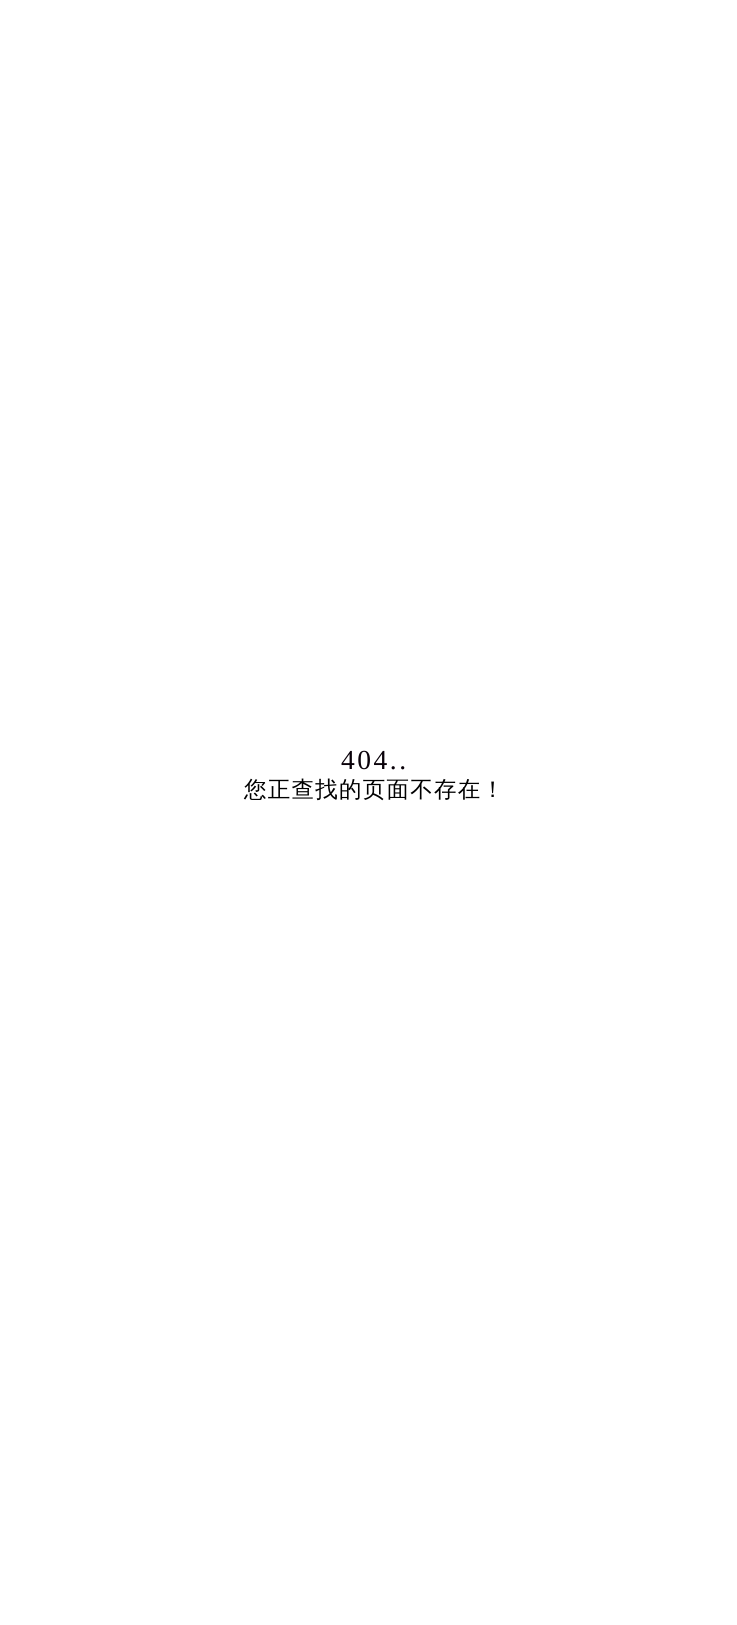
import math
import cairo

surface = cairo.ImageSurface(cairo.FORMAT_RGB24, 737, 1625)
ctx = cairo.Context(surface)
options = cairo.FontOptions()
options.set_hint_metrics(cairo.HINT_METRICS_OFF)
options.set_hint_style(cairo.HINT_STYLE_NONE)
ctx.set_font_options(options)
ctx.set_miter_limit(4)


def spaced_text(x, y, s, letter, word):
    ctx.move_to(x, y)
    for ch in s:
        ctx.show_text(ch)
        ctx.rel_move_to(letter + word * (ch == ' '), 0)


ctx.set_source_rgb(1, 1, 1)
ctx.paint()
ctx.select_font_face("Liberation Serif")
ctx.set_font_size(27.5)
ctx.set_source_rgb(0.039, 0.004, 0.039)
spaced_text(341, 769, "404..", 2.5, 0)
ctx.select_font_face("WenQuanYi Zen Hei Medium")
ctx.set_font_size(22.5)
ctx.set_source_rgb(0, 0, 0)
spaced_text(244, 797, "您正查找的页面不存在！", 1.25, 0)
surface.write_to_png("page.png")
